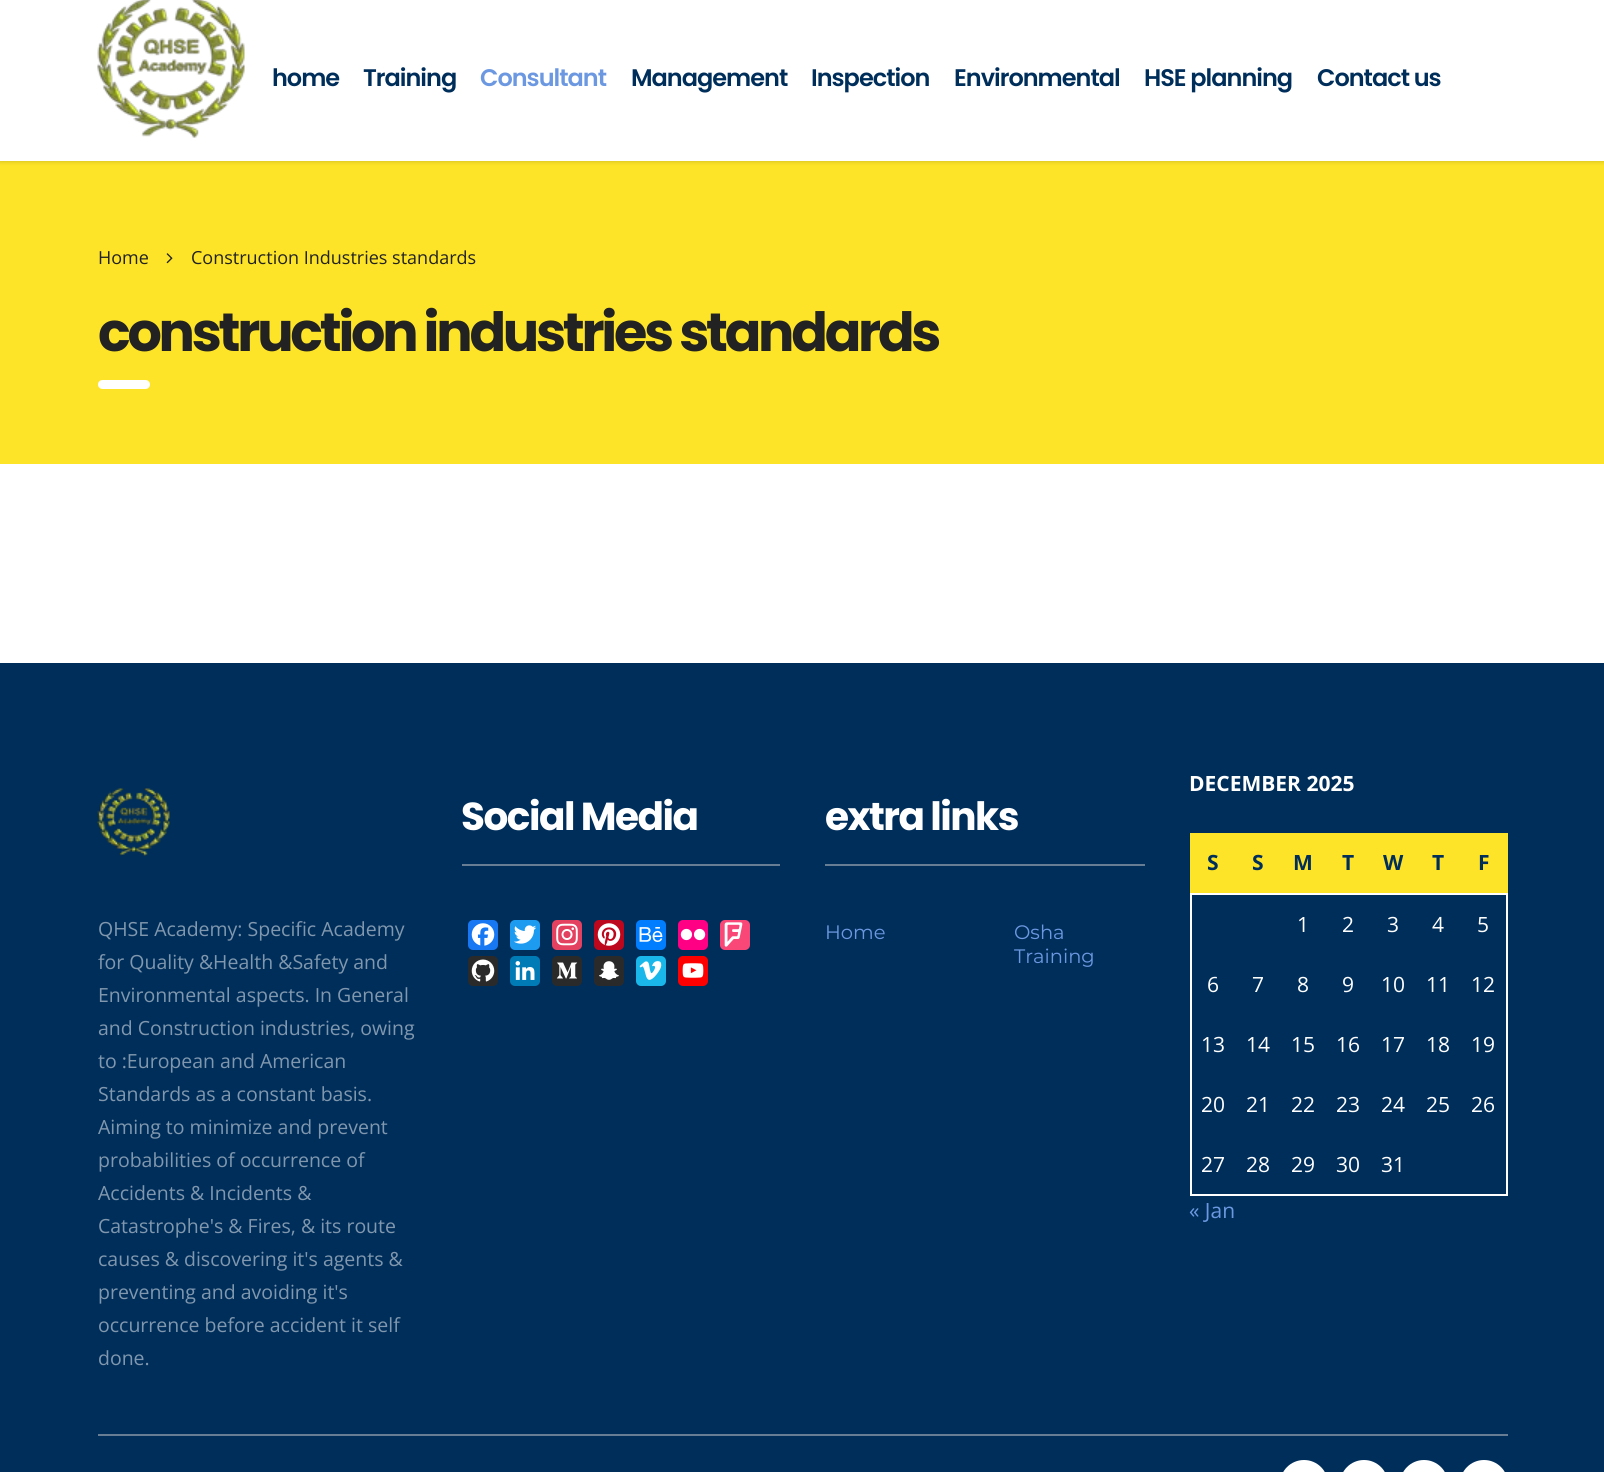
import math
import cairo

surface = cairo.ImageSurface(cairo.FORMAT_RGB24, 1604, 1472)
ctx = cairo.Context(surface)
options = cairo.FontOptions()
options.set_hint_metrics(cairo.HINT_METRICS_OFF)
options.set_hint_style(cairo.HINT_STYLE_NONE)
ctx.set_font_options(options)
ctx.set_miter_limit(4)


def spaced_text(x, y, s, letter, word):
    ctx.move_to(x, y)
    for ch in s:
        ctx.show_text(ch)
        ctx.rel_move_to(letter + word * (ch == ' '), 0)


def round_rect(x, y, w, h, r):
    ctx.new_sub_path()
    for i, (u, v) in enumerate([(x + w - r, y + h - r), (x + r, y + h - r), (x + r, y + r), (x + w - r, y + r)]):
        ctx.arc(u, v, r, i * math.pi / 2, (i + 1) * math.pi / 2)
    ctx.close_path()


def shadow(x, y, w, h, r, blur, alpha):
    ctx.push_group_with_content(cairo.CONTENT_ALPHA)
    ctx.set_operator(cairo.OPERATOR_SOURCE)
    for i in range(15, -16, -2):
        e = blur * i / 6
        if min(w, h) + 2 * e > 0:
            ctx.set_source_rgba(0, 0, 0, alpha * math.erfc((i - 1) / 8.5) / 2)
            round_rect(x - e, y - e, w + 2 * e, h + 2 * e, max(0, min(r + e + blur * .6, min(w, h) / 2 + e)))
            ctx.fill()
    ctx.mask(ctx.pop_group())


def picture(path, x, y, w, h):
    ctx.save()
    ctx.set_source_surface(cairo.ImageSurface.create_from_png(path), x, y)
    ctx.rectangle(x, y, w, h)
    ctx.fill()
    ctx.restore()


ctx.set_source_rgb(1, 1, 1)
ctx.paint()
ctx.set_source_rgb(0.992, 0.894, 0.157)
ctx.rectangle(0, 161, 1604, 303)
ctx.fill()
ctx.save()
ctx.set_fill_rule(cairo.FILL_RULE_EVEN_ODD)
ctx.new_path()
ctx.move_to(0, 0)
ctx.line_to(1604, 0)
ctx.line_to(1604, 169)
ctx.line_to(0, 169)
ctx.close_path()
ctx.move_to(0, -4)
ctx.line_to(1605, -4)
ctx.line_to(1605, 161)
ctx.line_to(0, 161)
ctx.close_path()
ctx.clip()
ctx.set_source_rgb(0, 0, 0)
shadow(0, -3, 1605, 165, 0, 2, 0.15)
ctx.restore()
ctx.set_source_rgba(1, 1, 1, 0.3)
ctx.rectangle(0, 160, 1604, 1)
ctx.fill()
picture("img1.png", 97, 0, 148, 138)
ctx.select_font_face("Poppins SemiBold")
ctx.set_font_size(24)
ctx.set_source_rgb(0, 0.18, 0.357)
spaced_text(272, 86, "home", -1, 0)
spaced_text(363, 86, "Training", -1, 0)
ctx.set_source_rgb(0.424, 0.596, 0.882)
spaced_text(480, 86, "Consultant", -1, 0)
ctx.set_source_rgb(0, 0.18, 0.357)
spaced_text(631, 86, "Management", -1, 0)
spaced_text(811, 86, "Inspection", -1, 0)
spaced_text(954, 86, "Environmental", -1, 0)
spaced_text(1144, 86, "HSE planning", -1, 0)
spaced_text(1317, 86, "Contact us", -1, 0)
ctx.select_font_face("Open Sans")
ctx.set_font_size(18)
ctx.set_source_rgb(0.133, 0.133, 0.133)
ctx.move_to(98, 264)
ctx.show_text("Home")
picture("img2.png", 166, 253, 7, 11)
ctx.move_to(191, 264)
ctx.show_text("Construction Industries standards")
ctx.select_font_face("Poppins", cairo.FONT_SLANT_NORMAL, cairo.FONT_WEIGHT_BOLD)
ctx.set_font_size(54)
spaced_text(98, 351, "construction industries standards", -3.25, 0)
ctx.set_source_rgb(1, 1, 1)
round_rect(98, 380, 52, 9, 4.5)
ctx.fill()
ctx.set_source_rgb(0, 0.18, 0.357)
ctx.rectangle(0, 663, 1604, 809)
ctx.fill()
ctx.set_source_rgb(0.4, 0.49, 0.58)
ctx.rectangle(462, 864, 318, 2)
ctx.fill()
ctx.set_font_size(39)
ctx.set_source_rgb(1, 1, 1)
spaced_text(461, 830, "Social Media", -1.5, 0)
ctx.set_source_rgb(0.094, 0.467, 0.949)
round_rect(468, 920, 30, 30, 5)
ctx.fill()
picture("img3.png", 471, 923, 24, 23)
ctx.set_source_rgb(0.114, 0.608, 0.941)
round_rect(510, 920, 30, 30, 5)
ctx.fill()
picture("img4.png", 514, 925, 23, 19)
ctx.set_source_rgb(0.894, 0.251, 0.373)
round_rect(552, 920, 30, 30, 5)
ctx.fill()
picture("img5.png", 556, 923, 22, 23)
ctx.set_source_rgb(0.741, 0.031, 0.11)
round_rect(594, 920, 30, 30, 5)
ctx.fill()
picture("img6.png", 597, 923, 24, 23)
ctx.set_source_rgb(0, 0.494, 1)
round_rect(636, 920, 30, 30, 5)
ctx.fill()
picture("img7.png", 639, 927, 24, 15)
ctx.set_source_rgb(1, 0, 0.518)
round_rect(678, 920, 30, 30, 5)
ctx.fill()
picture("img8.png", 680, 928, 26, 13)
ctx.set_source_rgb(0.976, 0.282, 0.467)
round_rect(720, 920, 30, 30, 5)
ctx.fill()
picture("img9.png", 724, 922, 19, 25)
ctx.set_source_rgb(0.165, 0.165, 0.165)
round_rect(468, 956, 30, 30, 5)
ctx.fill()
picture("img10.png", 471, 959, 24, 23)
ctx.set_source_rgb(0, 0.482, 0.71)
round_rect(510, 956, 30, 30, 5)
ctx.fill()
picture("img11.png", 515, 961, 20, 19)
ctx.set_source_rgb(0.165, 0.165, 0.165)
round_rect(552, 956, 30, 30, 5)
ctx.fill()
picture("img12.png", 556, 962, 22, 17)
round_rect(594, 956, 30, 30, 5)
ctx.fill()
picture("img13.png", 599, 961, 20, 19)
ctx.set_source_rgb(0.102, 0.718, 0.918)
round_rect(636, 956, 30, 30, 5)
ctx.fill()
picture("img14.png", 639, 961, 23, 19)
ctx.set_source_rgb(1, 0, 0)
round_rect(678, 956, 30, 30, 5)
ctx.fill()
picture("img15.png", 682, 963, 22, 15)
ctx.set_source_rgb(0.4, 0.49, 0.58)
ctx.rectangle(825, 864, 320, 2)
ctx.fill()
ctx.set_source_rgb(1, 1, 1)
spaced_text(825, 830, "extra links", -1.5, 0)
ctx.select_font_face("Montserrat")
ctx.set_font_size(19.5)
ctx.set_source_rgb(0.424, 0.596, 0.882)
ctx.move_to(825, 939)
ctx.show_text("Home")
ctx.move_to(1014, 939)
ctx.show_text("Osha")
ctx.move_to(1014, 963)
ctx.show_text("Training")
ctx.select_font_face("Open Sans", cairo.FONT_SLANT_NORMAL, cairo.FONT_WEIGHT_BOLD)
ctx.set_font_size(21)
ctx.set_source_rgb(1, 1, 1)
ctx.move_to(1189, 791)
ctx.show_text("DECEMBER 2025")
ctx.set_source_rgb(0.992, 0.894, 0.157)
ctx.rectangle(1190, 833, 318, 60)
ctx.fill()
ctx.set_source_rgb(0, 0.18, 0.357)
ctx.move_to(1207, 870)
ctx.show_text("S")
ctx.move_to(1252, 870)
ctx.show_text("S")
ctx.move_to(1293, 870)
ctx.show_text("M")
ctx.move_to(1342, 870)
ctx.show_text("T")
ctx.move_to(1383, 870)
ctx.show_text("W")
ctx.move_to(1432, 870)
ctx.show_text("T")
ctx.move_to(1478, 870)
ctx.show_text("F")
ctx.set_source_rgb(1, 1, 1)
ctx.rectangle(1190, 893, 318, 2)
ctx.fill()
ctx.rectangle(1506, 893, 2, 303)
ctx.fill()
ctx.rectangle(1190, 1194, 318, 2)
ctx.fill()
ctx.rectangle(1190, 893, 2, 303)
ctx.fill()
ctx.select_font_face("Open Sans")
ctx.move_to(1297, 932)
ctx.show_text("1")
ctx.move_to(1342, 932)
ctx.show_text("2")
ctx.move_to(1387, 932)
ctx.show_text("3")
ctx.move_to(1432, 932)
ctx.show_text("4")
ctx.move_to(1477, 932)
ctx.show_text("5")
ctx.move_to(1207, 992)
ctx.show_text("6")
ctx.move_to(1252, 992)
ctx.show_text("7")
ctx.move_to(1297, 992)
ctx.show_text("8")
ctx.move_to(1342, 992)
ctx.show_text("9")
ctx.move_to(1381, 992)
ctx.show_text("10")
ctx.move_to(1426, 992)
ctx.show_text("11")
ctx.move_to(1471, 992)
ctx.show_text("12")
ctx.move_to(1201, 1052)
ctx.show_text("13")
ctx.move_to(1246, 1052)
ctx.show_text("14")
ctx.move_to(1291, 1052)
ctx.show_text("15")
ctx.move_to(1336, 1052)
ctx.show_text("16")
ctx.move_to(1381, 1052)
ctx.show_text("17")
ctx.move_to(1426, 1052)
ctx.show_text("18")
ctx.move_to(1471, 1052)
ctx.show_text("19")
ctx.move_to(1201, 1112)
ctx.show_text("20")
ctx.move_to(1246, 1112)
ctx.show_text("21")
ctx.move_to(1291, 1112)
ctx.show_text("22")
ctx.move_to(1336, 1112)
ctx.show_text("23")
ctx.move_to(1381, 1112)
ctx.show_text("24")
ctx.move_to(1426, 1112)
ctx.show_text("25")
ctx.move_to(1471, 1112)
ctx.show_text("26")
ctx.move_to(1201, 1172)
ctx.show_text("27")
ctx.move_to(1246, 1172)
ctx.show_text("28")
ctx.move_to(1291, 1172)
ctx.show_text("29")
ctx.move_to(1336, 1172)
ctx.show_text("30")
ctx.move_to(1381, 1172)
ctx.show_text("31")
ctx.set_source_rgb(0.424, 0.596, 0.882)
ctx.move_to(1189, 1218)
ctx.show_text("« Jan")
picture("img16.png", 97, 788, 73, 68)
ctx.set_font_size(19.5)
ctx.set_source_rgb(0.502, 0.592, 0.678)
ctx.move_to(98, 936)
ctx.show_text("QHSE Academy: Specific Academy")
ctx.move_to(98, 969)
ctx.show_text("for Quality &Health &Safety and")
ctx.move_to(98, 1002)
ctx.show_text("Environmental aspects. In General")
ctx.move_to(98, 1035)
ctx.show_text("and Construction industries, owing")
ctx.move_to(98, 1068)
ctx.show_text("to :European and American")
ctx.move_to(98, 1101)
ctx.show_text("Standards as a constant basis.")
ctx.move_to(98, 1134)
ctx.show_text("Aiming to minimize and prevent")
ctx.move_to(98, 1167)
ctx.show_text("probabilities of occurrence of")
ctx.move_to(98, 1200)
ctx.show_text("Accidents & Incidents &")
ctx.move_to(98, 1233)
ctx.show_text("Catastrophe's & Fires, & its route")
ctx.move_to(98, 1266)
ctx.show_text("causes & discovering it's agents &")
ctx.move_to(98, 1299)
ctx.show_text("preventing and avoiding it's")
ctx.move_to(98, 1332)
ctx.show_text("occurrence before accident it self")
ctx.move_to(98, 1365)
ctx.show_text("done.")
ctx.set_source_rgb(0.4, 0.49, 0.58)
ctx.rectangle(98, 1434, 1410, 2)
ctx.fill()
ctx.set_source_rgb(1, 1, 1)
round_rect(1280, 1460, 48, 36, 24)
ctx.fill()
round_rect(1340, 1460, 48, 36, 24)
ctx.fill()
round_rect(1400, 1460, 48, 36, 24)
ctx.fill()
round_rect(1460, 1460, 48, 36, 24)
ctx.fill()
surface.write_to_png("page.png")
